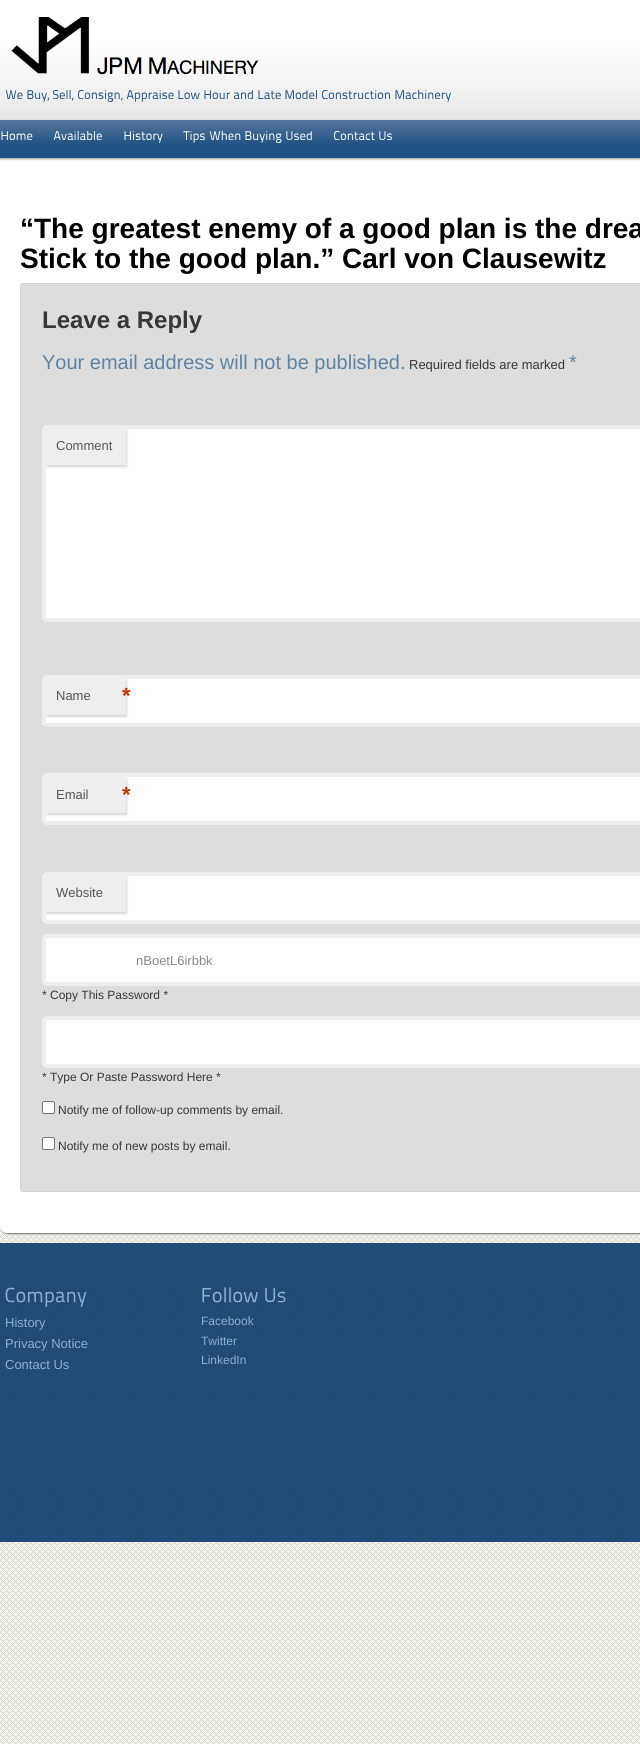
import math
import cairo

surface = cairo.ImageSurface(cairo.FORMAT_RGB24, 640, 1744)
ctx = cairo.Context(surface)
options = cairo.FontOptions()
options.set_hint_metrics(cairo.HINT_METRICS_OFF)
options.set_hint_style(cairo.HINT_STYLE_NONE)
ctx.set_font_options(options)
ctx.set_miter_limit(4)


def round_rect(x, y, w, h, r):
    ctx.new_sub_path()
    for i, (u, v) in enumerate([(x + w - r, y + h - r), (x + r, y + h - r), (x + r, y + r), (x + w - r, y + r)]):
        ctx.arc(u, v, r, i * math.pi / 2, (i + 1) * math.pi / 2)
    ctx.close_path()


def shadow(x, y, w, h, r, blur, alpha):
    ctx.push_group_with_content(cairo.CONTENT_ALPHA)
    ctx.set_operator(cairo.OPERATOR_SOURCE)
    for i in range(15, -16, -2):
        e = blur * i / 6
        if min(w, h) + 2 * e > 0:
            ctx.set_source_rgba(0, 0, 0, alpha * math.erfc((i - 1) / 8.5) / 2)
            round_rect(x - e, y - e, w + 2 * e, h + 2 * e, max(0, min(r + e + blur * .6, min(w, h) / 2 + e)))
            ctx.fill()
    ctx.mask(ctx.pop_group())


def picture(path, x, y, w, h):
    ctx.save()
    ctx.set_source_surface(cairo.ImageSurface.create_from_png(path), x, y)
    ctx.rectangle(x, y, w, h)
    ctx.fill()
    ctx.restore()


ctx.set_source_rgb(1, 1, 1)
ctx.paint()
picture("img1.png", 0, 1226, 640, 518)
ctx.set_source_rgb(0.498, 0.498, 0.498)
shadow(1, 159, 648, 1075, 7, 0.5, 1)
picture("img2.png", 0, 120, 640, 38)
gradient = cairo.LinearGradient(320, 0, 320, 120)
gradient.add_color_stop_rgba(0, 1, 1, 1, 1)
gradient.add_color_stop_rgba(0.28, 1, 1, 1, 1)
gradient.add_color_stop_rgba(0.46, 0.984, 0.984, 0.984, 1)
gradient.add_color_stop_rgba(0.74, 0.949, 0.949, 0.949, 1)
gradient.add_color_stop_rgba(1, 0.902, 0.902, 0.902, 1)
ctx.set_source(gradient)
ctx.rectangle(0, 47, 640, 73)
ctx.fill()
picture("img3.png", 11, 17, 248, 58)
picture("img4.png", 5, 90, 18, 9)
picture("img5.png", 27, 90, 23, 12)
picture("img6.png", 52, 90, 22, 11)
picture("img7.png", 78, 90, 45, 12)
picture("img8.png", 126, 90, 48, 12)
picture("img9.png", 178, 90, 22, 9)
picture("img10.png", 204, 90, 26, 9)
picture("img11.png", 234, 90, 19, 9)
picture("img12.png", 258, 90, 23, 10)
picture("img13.png", 285, 90, 32, 9)
picture("img14.png", 322, 90, 68, 10)
picture("img15.png", 395, 89, 56, 13)
ctx.set_source_rgb(1, 1, 1)
ctx.new_path()
ctx.move_to(0, 158)
ctx.line_to(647, 158)
ctx.line_to(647, 1226)
ctx.curve_to(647, 1230, 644, 1233, 640, 1233)
ctx.line_to(7, 1233)
ctx.curve_to(3, 1233, 0, 1230, 0, 1226)
ctx.close_path()
ctx.fill()
ctx.save()
ctx.set_fill_rule(cairo.FILL_RULE_EVEN_ODD)
ctx.new_path()
ctx.move_to(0, 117)
ctx.line_to(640, 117)
ctx.line_to(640, 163)
ctx.line_to(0, 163)
ctx.close_path()
ctx.move_to(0, 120)
ctx.line_to(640, 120)
ctx.line_to(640, 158)
ctx.line_to(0, 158)
ctx.close_path()
ctx.clip()
ctx.set_source_rgb(0, 0, 0)
shadow(0, 121, 640, 38, 0, 1, 0.4)
ctx.restore()
picture("img16.png", 1, 131, 32, 9)
picture("img17.png", 53, 131, 49, 9)
picture("img18.png", 124, 131, 39, 12)
picture("img19.png", 183, 131, 22, 12)
picture("img20.png", 209, 130, 32, 10)
picture("img21.png", 245, 131, 37, 12)
picture("img22.png", 286, 131, 26, 9)
picture("img23.png", 334, 131, 41, 10)
picture("img24.png", 379, 131, 13, 9)
ctx.select_font_face("Liberation Sans", cairo.FONT_SLANT_NORMAL, cairo.FONT_WEIGHT_BOLD)
ctx.set_font_size(28)
ctx.set_source_rgb(0, 0, 0)
ctx.move_to(20, 238)
ctx.show_text("“The greatest enemy of a good plan is the drea")
ctx.move_to(20, 268)
ctx.show_text("Stick to the good plan.” Carl von Clausewitz")
ctx.set_source_rgb(0.867, 0.867, 0.867)
round_rect(20.5, 283.5, 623, 908, 2.5)
ctx.fill_preserve()
ctx.set_source_rgb(0.827, 0.827, 0.827)
ctx.set_line_width(1)
ctx.stroke()
ctx.set_font_size(24)
ctx.set_source_rgb(0.216, 0.216, 0.216)
ctx.move_to(42, 328)
ctx.show_text("Leave a Reply")
ctx.select_font_face("Liberation Sans")
ctx.set_font_size(20)
ctx.set_source_rgb(0.365, 0.514, 0.651)
ctx.move_to(42, 369)
ctx.show_text("Your email address will not be published.")
ctx.set_font_size(13)
ctx.set_source_rgb(0.216, 0.216, 0.216)
ctx.move_to(409, 369)
ctx.show_text("Required fields are marked")
ctx.set_font_size(20)
ctx.set_source_rgb(0.365, 0.514, 0.651)
ctx.move_to(569, 369)
ctx.show_text("*")
ctx.set_source_rgb(1, 1, 1)
round_rect(44, 427, 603, 193, 3)
ctx.fill_preserve()
ctx.set_source_rgb(0.933, 0.933, 0.933)
ctx.set_line_width(4)
ctx.stroke()
ctx.set_source_rgb(0.8, 0.8, 0.8)
shadow(47, 430, 80, 37, 0, 1, 0.8)
ctx.set_source_rgb(0.933, 0.933, 0.933)
ctx.rectangle(46, 429, 80, 36)
ctx.fill()
ctx.set_font_size(13)
ctx.set_source_rgb(0.333, 0.333, 0.333)
ctx.move_to(56, 450)
ctx.show_text("Comment")
ctx.set_source_rgb(1, 1, 1)
round_rect(44, 677, 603, 48, 3)
ctx.fill_preserve()
ctx.set_source_rgb(0.933, 0.933, 0.933)
ctx.stroke()
ctx.set_source_rgb(0.8, 0.8, 0.8)
shadow(47, 680, 80, 37, 0, 1, 0.8)
ctx.set_source_rgb(0.933, 0.933, 0.933)
ctx.rectangle(46, 679, 80, 36)
ctx.fill()
ctx.set_source_rgb(0.333, 0.333, 0.333)
ctx.move_to(56, 700)
ctx.show_text("Name")
ctx.select_font_face("Liberation Sans", cairo.FONT_SLANT_NORMAL, cairo.FONT_WEIGHT_BOLD)
ctx.set_font_size(22)
ctx.set_source_rgb(0.741, 0.208, 0)
ctx.move_to(122, 703)
ctx.show_text("*")
ctx.set_source_rgb(1, 1, 1)
round_rect(44, 775, 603, 48, 3)
ctx.fill_preserve()
ctx.set_source_rgb(0.933, 0.933, 0.933)
ctx.stroke()
ctx.set_source_rgb(0.8, 0.8, 0.8)
shadow(47, 779, 80, 36, 0, 1, 0.8)
ctx.set_source_rgb(0.933, 0.933, 0.933)
ctx.rectangle(46, 777, 80, 36)
ctx.fill()
ctx.select_font_face("Liberation Sans")
ctx.set_font_size(13)
ctx.set_source_rgb(0.333, 0.333, 0.333)
ctx.move_to(56, 799)
ctx.show_text("Email")
ctx.select_font_face("Liberation Sans", cairo.FONT_SLANT_NORMAL, cairo.FONT_WEIGHT_BOLD)
ctx.set_font_size(22)
ctx.set_source_rgb(0.741, 0.208, 0)
ctx.move_to(122, 802)
ctx.show_text("*")
ctx.set_source_rgb(1, 1, 1)
round_rect(44, 874, 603, 48, 3)
ctx.fill_preserve()
ctx.set_source_rgb(0.933, 0.933, 0.933)
ctx.stroke()
ctx.set_source_rgb(0.8, 0.8, 0.8)
shadow(47, 877, 80, 37, 0, 1, 0.8)
ctx.set_source_rgb(0.933, 0.933, 0.933)
ctx.rectangle(46, 876, 80, 36)
ctx.fill()
ctx.select_font_face("Liberation Sans")
ctx.set_font_size(13)
ctx.set_source_rgb(0.333, 0.333, 0.333)
ctx.move_to(56, 897)
ctx.show_text("Website")
ctx.set_source_rgb(1, 1, 1)
round_rect(44, 936, 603, 48, 3)
ctx.fill_preserve()
ctx.set_source_rgb(0.933, 0.933, 0.933)
ctx.stroke()
ctx.set_source_rgb(0.533, 0.533, 0.533)
ctx.move_to(136, 965)
ctx.show_text("nBoetL6irbbk")
ctx.set_font_size(12)
ctx.set_source_rgb(0.216, 0.216, 0.216)
ctx.move_to(42, 999)
ctx.show_text("* Copy This Password *")
ctx.set_source_rgb(1, 1, 1)
round_rect(44, 1018, 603, 48, 3)
ctx.fill_preserve()
ctx.set_source_rgb(0.933, 0.933, 0.933)
ctx.stroke()
ctx.set_source_rgb(0.216, 0.216, 0.216)
ctx.move_to(42, 1081)
ctx.show_text("* Type Or Paste Password Here *")
ctx.set_source_rgb(1, 1, 1)
round_rect(42.5, 1101.5, 12, 12, 1.5)
ctx.fill_preserve()
ctx.set_source_rgb(0.463, 0.463, 0.463)
ctx.set_line_width(1)
ctx.stroke()
ctx.set_source_rgb(0.216, 0.216, 0.216)
ctx.move_to(58, 1114)
ctx.show_text("Notify me of follow-up comments by email.")
ctx.set_source_rgb(1, 1, 1)
round_rect(42.5, 1137.5, 12, 12, 1.5)
ctx.fill_preserve()
ctx.set_source_rgb(0.463, 0.463, 0.463)
ctx.stroke()
ctx.set_source_rgb(0.216, 0.216, 0.216)
ctx.move_to(58, 1150)
ctx.show_text("Notify me of new posts by email.")
picture("img25.png", 0, 1243, 640, 299)
picture("img26.png", 5, 1287, 82, 20)
ctx.set_font_size(13)
ctx.set_source_rgb(0.553, 0.686, 0.839)
ctx.move_to(5, 1327)
ctx.show_text("History")
ctx.move_to(5, 1348)
ctx.show_text("Privacy Notice")
ctx.move_to(5, 1369)
ctx.show_text("Contact Us")
picture("img27.png", 202, 1287, 56, 16)
picture("img28.png", 265, 1288, 21, 15)
ctx.set_font_size(12)
ctx.move_to(201, 1325)
ctx.show_text("Facebook")
ctx.move_to(201, 1345)
ctx.show_text("Twitter")
ctx.move_to(201, 1364)
ctx.show_text("LinkedIn")
surface.write_to_png("page.png")
